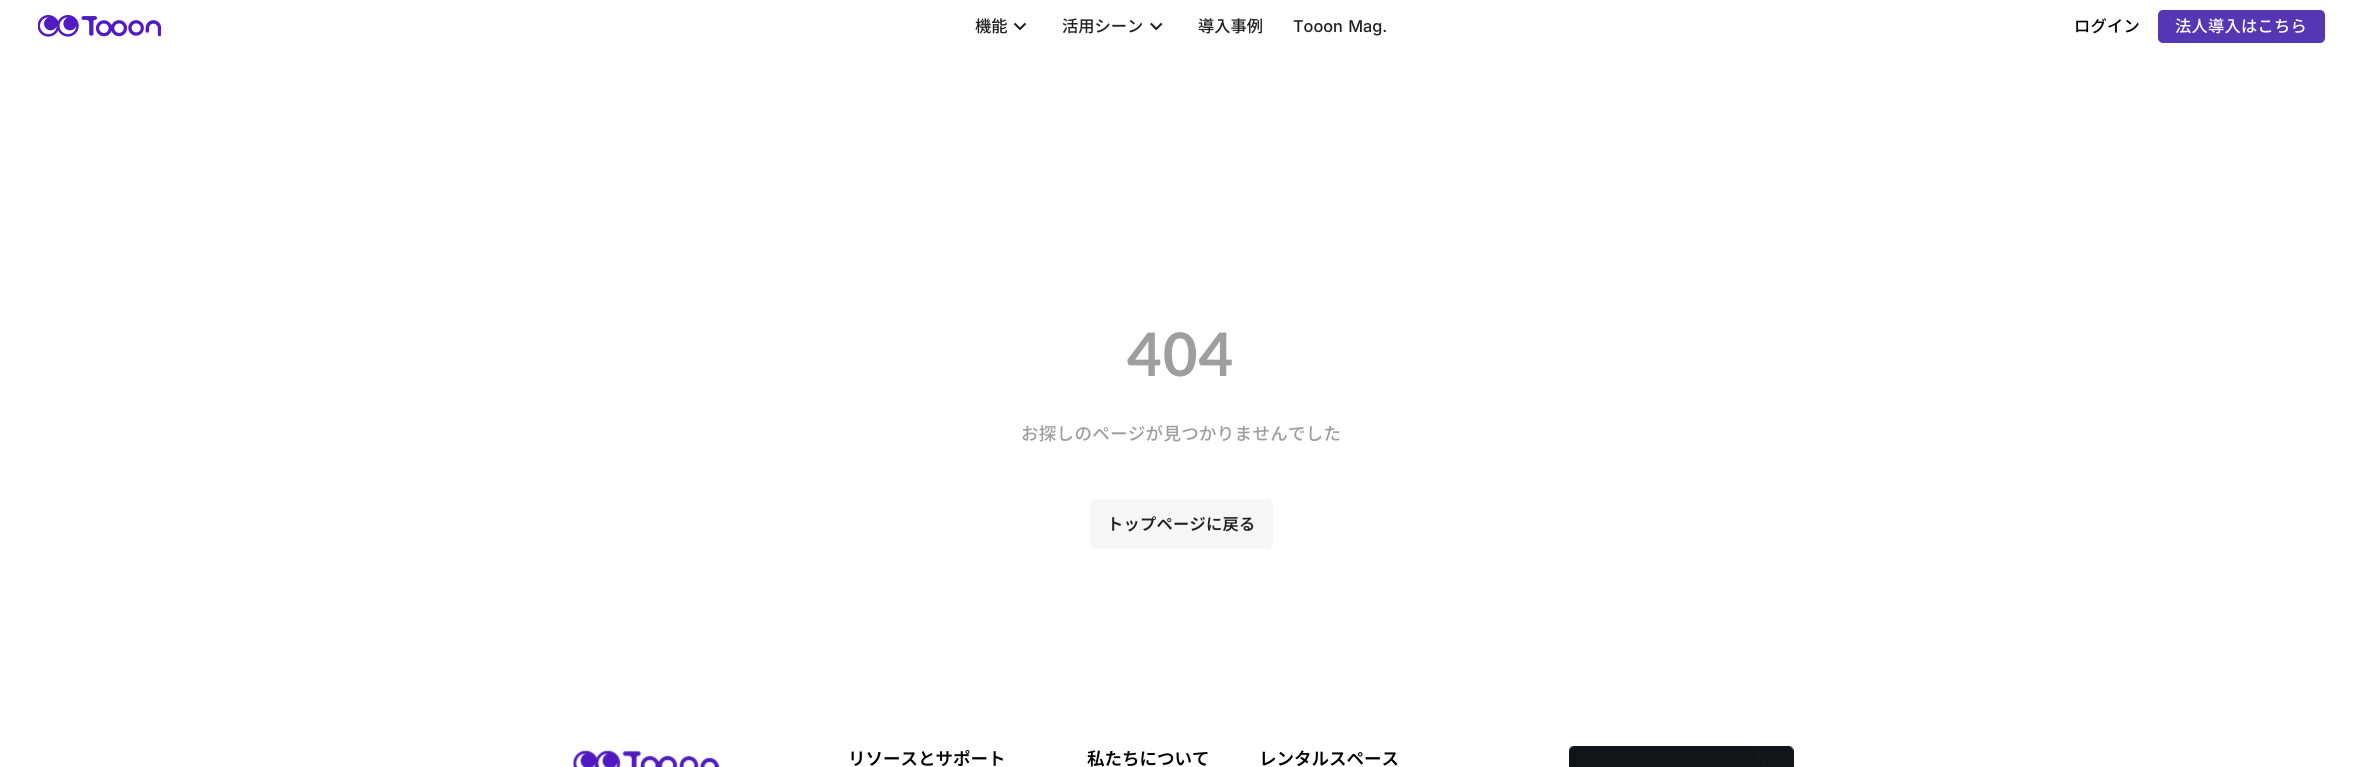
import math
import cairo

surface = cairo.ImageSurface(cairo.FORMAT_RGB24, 2362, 767)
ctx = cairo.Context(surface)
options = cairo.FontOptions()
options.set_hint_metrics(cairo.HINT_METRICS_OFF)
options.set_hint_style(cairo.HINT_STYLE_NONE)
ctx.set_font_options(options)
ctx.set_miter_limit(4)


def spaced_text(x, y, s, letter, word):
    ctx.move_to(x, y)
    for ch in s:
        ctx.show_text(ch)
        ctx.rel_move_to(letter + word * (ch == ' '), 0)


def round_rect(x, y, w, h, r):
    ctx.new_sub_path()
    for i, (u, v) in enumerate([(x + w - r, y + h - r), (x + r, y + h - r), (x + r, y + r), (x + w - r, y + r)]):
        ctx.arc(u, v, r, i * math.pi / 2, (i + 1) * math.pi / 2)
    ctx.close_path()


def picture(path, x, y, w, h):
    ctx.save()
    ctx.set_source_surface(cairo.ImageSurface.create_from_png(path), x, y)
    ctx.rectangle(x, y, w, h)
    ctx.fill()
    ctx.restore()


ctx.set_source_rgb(1, 1, 1)
ctx.paint()
picture("img1.png", 38, 15, 123, 22)
ctx.select_font_face("Noto Sans JP Medium")
ctx.set_font_size(16.25)
ctx.set_source_rgb(0.129, 0.129, 0.129)
ctx.move_to(975, 32)
ctx.show_text("機能")
picture("img2.png", 1013, 22, 14, 9)
ctx.move_to(1062, 32)
ctx.show_text("活用シーン")
picture("img3.png", 1150, 22, 13, 9)
ctx.move_to(1198, 32)
ctx.show_text("導入事例")
ctx.select_font_face("Inter Medium")
spaced_text(1293, 32, "Tooon Mag.", 0, 1)
ctx.select_font_face("Noto Sans JP Medium")
ctx.set_source_rgb(0, 0, 0)
spaced_text(2074, 32, "ログイン", 0.25, 0)
ctx.set_source_rgb(0.333, 0.212, 0.702)
round_rect(2158, 10, 167, 33, 5)
ctx.fill()
ctx.set_source_rgb(1, 1, 1)
spaced_text(2175, 32, "法人導入はこちら", 0.25, 0)
ctx.select_font_face("Lato", cairo.FONT_SLANT_NORMAL, cairo.FONT_WEIGHT_BOLD)
ctx.set_font_size(60)
ctx.set_source_rgb(0.62, 0.62, 0.62)
spaced_text(1127, 376, "404", 1, 0)
ctx.select_font_face("Noto Sans JP Medium")
ctx.set_font_size(17.5)
spaced_text(1021, 440, "お探しのページが見つかりませんでした", 0.3, 0)
ctx.set_source_rgb(0.961, 0.961, 0.961)
round_rect(1090, 499, 183, 50, 5)
ctx.fill()
ctx.select_font_face("Noto Sans JP SemiBold")
ctx.set_font_size(16.25)
ctx.set_source_rgb(0.129, 0.129, 0.129)
spaced_text(1107, 530, "トップページに戻る", 0.25, 0)
picture("img4.png", 572, 750, 147, 17)
ctx.set_font_size(17.5)
ctx.set_source_rgb(0, 0, 0)
ctx.move_to(848, 765)
ctx.show_text("リソースとサポート")
ctx.move_to(1087, 765)
ctx.show_text("私たちについて")
ctx.move_to(1259, 765)
ctx.show_text("レンタルスペース")
picture("img5.png", 1569, 746, 225, 21)
surface.write_to_png("page.png")
